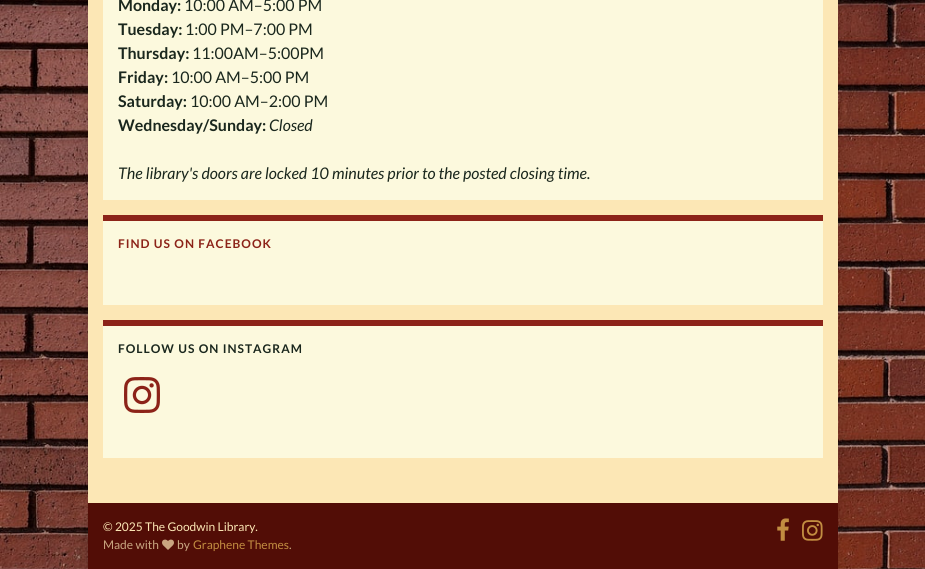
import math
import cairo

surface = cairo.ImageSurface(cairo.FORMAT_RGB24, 925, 569)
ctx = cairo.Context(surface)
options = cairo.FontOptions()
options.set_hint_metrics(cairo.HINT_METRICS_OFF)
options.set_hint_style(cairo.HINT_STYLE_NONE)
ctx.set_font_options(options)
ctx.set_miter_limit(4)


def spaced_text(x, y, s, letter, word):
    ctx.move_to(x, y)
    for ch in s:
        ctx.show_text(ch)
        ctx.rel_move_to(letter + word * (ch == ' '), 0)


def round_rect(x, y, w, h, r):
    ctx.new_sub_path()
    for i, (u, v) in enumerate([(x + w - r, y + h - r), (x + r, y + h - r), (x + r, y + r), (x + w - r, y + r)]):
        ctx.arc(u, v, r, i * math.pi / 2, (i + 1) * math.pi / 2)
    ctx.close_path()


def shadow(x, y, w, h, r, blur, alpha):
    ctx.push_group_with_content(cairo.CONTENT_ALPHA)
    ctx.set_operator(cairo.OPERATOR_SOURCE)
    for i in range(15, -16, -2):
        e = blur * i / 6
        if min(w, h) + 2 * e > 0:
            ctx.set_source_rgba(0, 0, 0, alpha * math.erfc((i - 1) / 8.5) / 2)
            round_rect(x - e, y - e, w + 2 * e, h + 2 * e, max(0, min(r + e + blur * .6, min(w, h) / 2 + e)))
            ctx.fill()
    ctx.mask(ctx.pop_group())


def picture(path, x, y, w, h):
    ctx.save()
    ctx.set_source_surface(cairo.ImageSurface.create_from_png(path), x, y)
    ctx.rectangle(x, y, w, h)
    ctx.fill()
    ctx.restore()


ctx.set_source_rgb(1, 1, 1)
ctx.paint()
picture("img1.png", 0, 0, 925, 569)
ctx.set_source_rgb(0, 0, 0)
shadow(88, -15, 750, 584, 0, 5, 0.1)
ctx.set_source_rgb(0.988, 0.906, 0.71)
ctx.rectangle(88, 0, 750, 503)
ctx.fill()
ctx.set_source_rgb(0.988, 0.976, 0.867)
ctx.rectangle(103, 0, 720, 200)
ctx.fill()
ctx.select_font_face("Lato", cairo.FONT_SLANT_NORMAL, cairo.FONT_WEIGHT_BOLD)
ctx.set_font_size(16)
ctx.set_source_rgb(0.102, 0.153, 0.114)
ctx.move_to(118, 11)
ctx.show_text("Monday:")
ctx.select_font_face("Lato")
ctx.move_to(184, 11)
ctx.show_text("10:00 AM–5:00 PM")
ctx.select_font_face("Lato", cairo.FONT_SLANT_NORMAL, cairo.FONT_WEIGHT_BOLD)
ctx.move_to(118, 35)
ctx.show_text("Tuesday:")
ctx.select_font_face("Lato")
ctx.move_to(185, 35)
ctx.show_text("1:00 PM–7:00 PM")
ctx.select_font_face("Lato", cairo.FONT_SLANT_NORMAL, cairo.FONT_WEIGHT_BOLD)
ctx.move_to(118, 59)
ctx.show_text("Thursday:")
ctx.select_font_face("Lato")
ctx.move_to(192, 59)
ctx.show_text("11:00AM–5:00PM")
ctx.select_font_face("Lato", cairo.FONT_SLANT_NORMAL, cairo.FONT_WEIGHT_BOLD)
ctx.move_to(118, 83)
ctx.show_text("Friday:")
ctx.select_font_face("Lato")
ctx.move_to(171, 83)
ctx.show_text("10:00 AM–5:00 PM")
ctx.select_font_face("Lato", cairo.FONT_SLANT_NORMAL, cairo.FONT_WEIGHT_BOLD)
ctx.move_to(118, 107)
ctx.show_text("Saturday:")
ctx.select_font_face("Lato")
ctx.move_to(190, 107)
ctx.show_text("10:00 AM–2:00 PM")
ctx.select_font_face("Lato", cairo.FONT_SLANT_NORMAL, cairo.FONT_WEIGHT_BOLD)
ctx.move_to(118, 131)
ctx.show_text("Wednesday/Sunday:")
ctx.select_font_face("Lato", cairo.FONT_SLANT_ITALIC)
ctx.move_to(269, 131)
ctx.show_text("Closed")
ctx.move_to(118, 179)
ctx.show_text("The library's doors are locked 10 minutes prior to the posted closing time.")
ctx.set_source_rgb(0.988, 0.976, 0.867)
ctx.rectangle(103, 221, 720, 84)
ctx.fill()
ctx.set_source_rgb(0.549, 0.137, 0.094)
ctx.rectangle(103, 215, 720, 6)
ctx.fill()
ctx.select_font_face("Lato", cairo.FONT_SLANT_NORMAL, cairo.FONT_WEIGHT_BOLD)
ctx.set_font_size(12)
spaced_text(118, 248, "FIND US ON FACEBOOK", 1, 0)
ctx.set_source_rgb(0.988, 0.976, 0.867)
ctx.rectangle(103, 326, 720, 132)
ctx.fill()
ctx.set_source_rgb(0.549, 0.137, 0.094)
ctx.rectangle(103, 320, 720, 6)
ctx.fill()
ctx.set_source_rgb(0.102, 0.153, 0.114)
spaced_text(118, 353, "FOLLOW US ON INSTAGRAM", 1, 0)
picture("img2.png", 124, 377, 36, 36)
ctx.set_source_rgb(0.322, 0.051, 0.024)
ctx.rectangle(88, 503, 750, 66)
ctx.fill()
ctx.select_font_face("Lato")
ctx.set_source_rgb(0.988, 0.906, 0.71)
ctx.move_to(103, 531)
ctx.show_text("© 2025 The Goodwin Library.")
ctx.set_source_rgb(0.788, 0.651, 0.506)
ctx.move_to(103, 549)
ctx.show_text("Made with")
picture("img3.png", 162, 539, 12, 11)
ctx.move_to(177, 549)
ctx.show_text("by")
ctx.set_source_rgb(0.761, 0.553, 0.255)
ctx.move_to(193, 549)
ctx.show_text("Graphene Themes")
ctx.set_source_rgb(0.788, 0.651, 0.506)
ctx.move_to(289, 549)
ctx.show_text(".")
picture("img4.png", 777, 518, 12, 23)
picture("img5.png", 802, 520, 21, 21)
surface.write_to_png("page.png")
